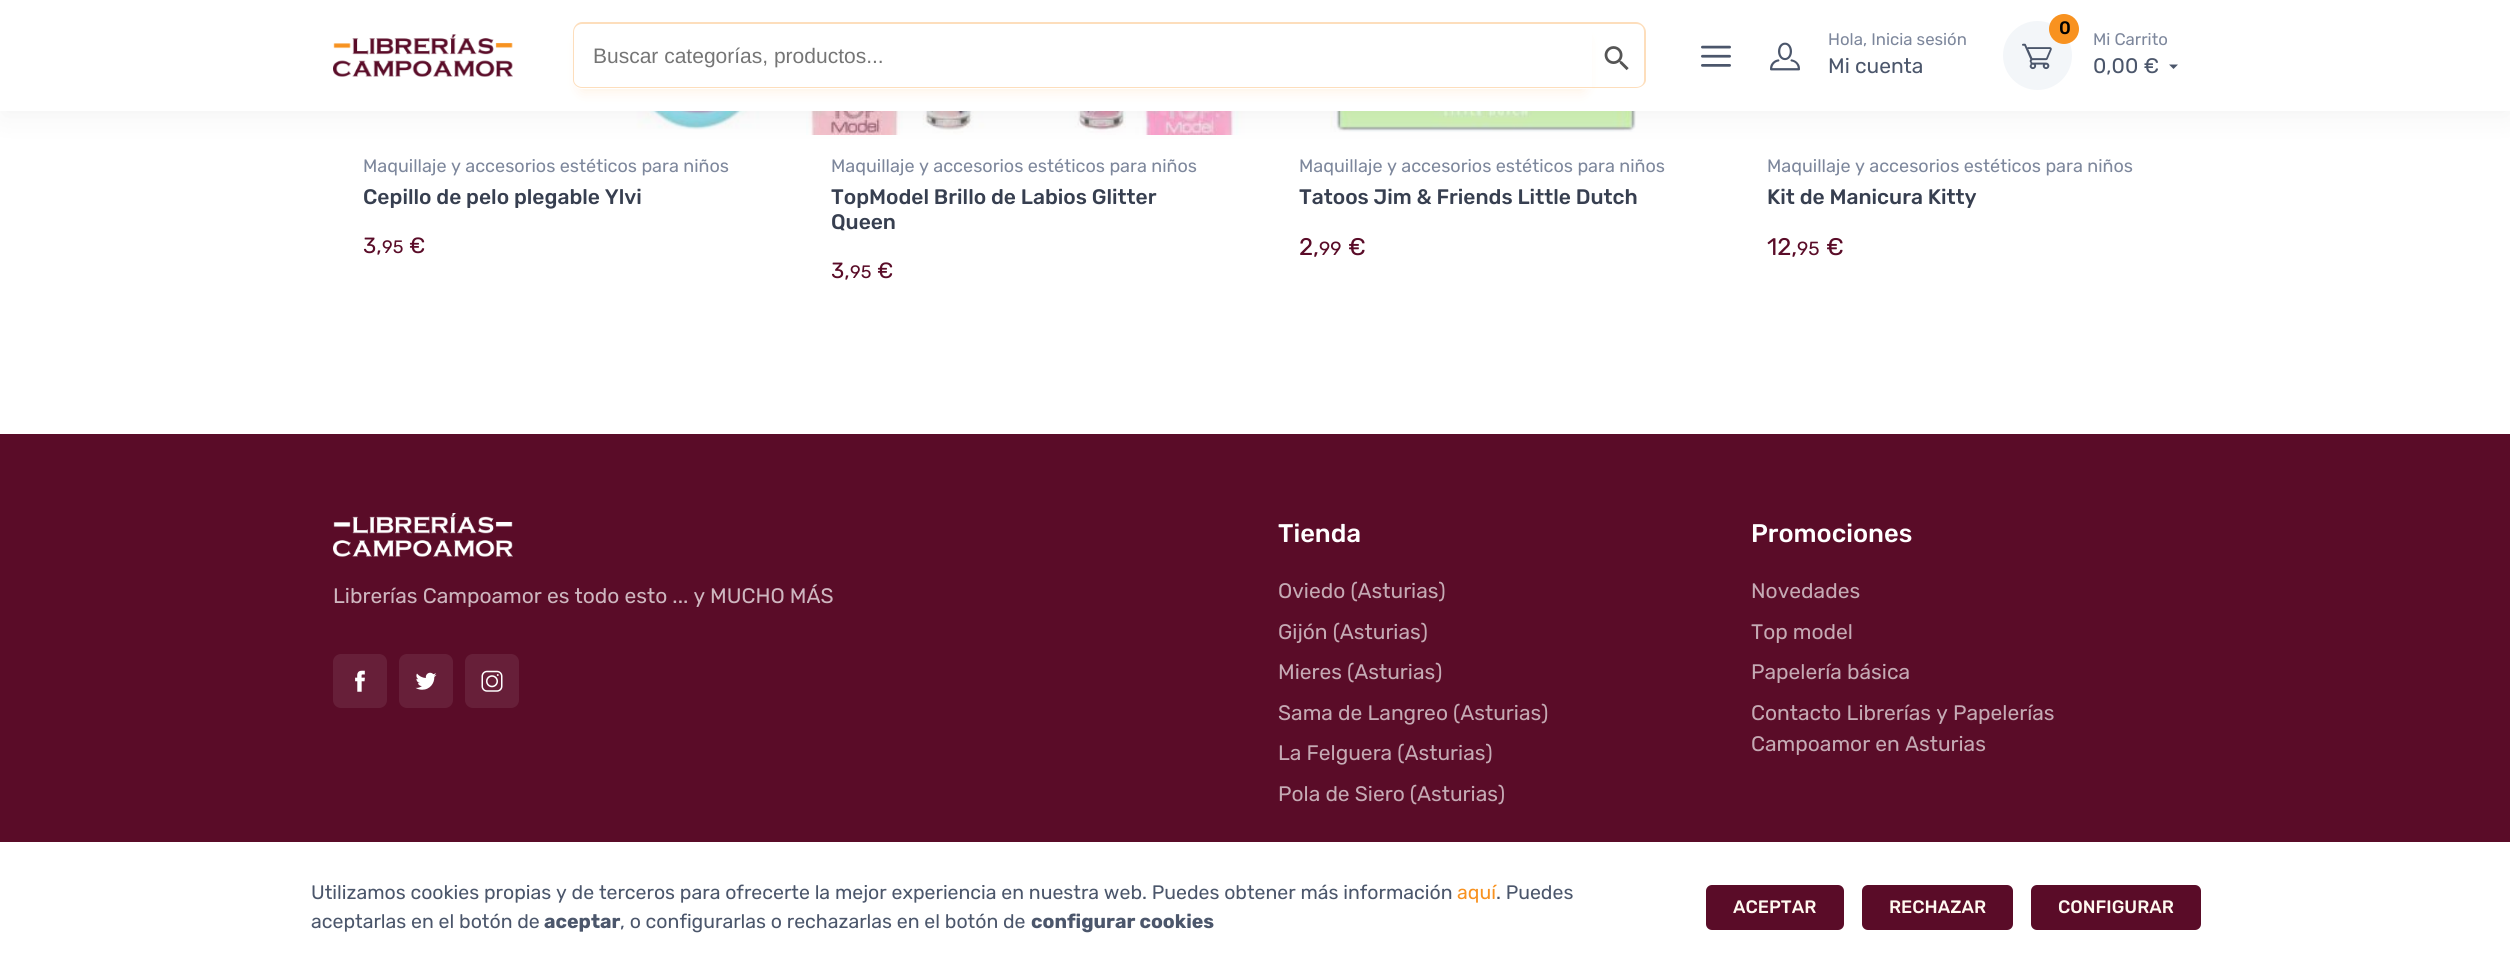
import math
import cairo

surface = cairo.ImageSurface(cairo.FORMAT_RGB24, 2510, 971)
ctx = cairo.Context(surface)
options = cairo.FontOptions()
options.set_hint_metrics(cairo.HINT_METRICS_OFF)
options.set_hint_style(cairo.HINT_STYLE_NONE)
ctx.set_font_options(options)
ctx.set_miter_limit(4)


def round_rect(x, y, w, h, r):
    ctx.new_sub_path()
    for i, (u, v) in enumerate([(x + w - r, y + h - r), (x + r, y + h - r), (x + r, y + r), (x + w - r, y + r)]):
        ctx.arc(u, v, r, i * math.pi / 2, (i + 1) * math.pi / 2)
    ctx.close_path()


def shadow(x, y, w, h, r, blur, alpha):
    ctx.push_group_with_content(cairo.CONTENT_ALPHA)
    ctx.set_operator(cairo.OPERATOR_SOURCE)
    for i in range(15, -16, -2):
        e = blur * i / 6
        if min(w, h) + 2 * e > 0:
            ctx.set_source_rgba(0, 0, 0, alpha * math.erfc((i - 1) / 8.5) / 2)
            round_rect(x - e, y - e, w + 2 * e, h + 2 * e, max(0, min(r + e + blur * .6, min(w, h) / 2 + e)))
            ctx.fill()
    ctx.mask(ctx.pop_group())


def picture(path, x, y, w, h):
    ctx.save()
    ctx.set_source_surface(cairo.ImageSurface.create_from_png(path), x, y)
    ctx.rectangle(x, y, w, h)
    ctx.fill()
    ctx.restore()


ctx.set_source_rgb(1, 1, 1)
ctx.paint()
picture("img6.png", 475, 111, 302, 19)
picture("img7.png", 806, 111, 439, 24)
picture("img8.png", 1330, 111, 306, 21)
ctx.set_source_rgb(0, 0, 0)
shadow(2, 8, 2508, 108, 0, 15, 0.05)
ctx.set_source_rgb(1, 1, 1)
ctx.rectangle(0, 0, 2510, 111)
ctx.fill()
picture("img1.png", 333, 34, 180, 43)
ctx.set_source_rgb(0.992, 0.871, 0.737)
ctx.set_fill_rule(cairo.FILL_RULE_EVEN_ODD)
ctx.new_path()
ctx.move_to(1592, 22)
ctx.line_to(1636, 22)
ctx.curve_to(1641, 22, 1646, 27, 1646, 32)
ctx.line_to(1646, 80)
ctx.curve_to(1646, 84, 1641, 88, 1636, 88)
ctx.line_to(1592, 88)
ctx.close_path()
ctx.move_to(1592, 24)
ctx.line_to(1636, 24)
ctx.curve_to(1641, 24, 1644, 27, 1644, 32)
ctx.line_to(1644, 80)
ctx.curve_to(1644, 84, 1641, 87, 1636, 87)
ctx.line_to(1592, 87)
ctx.close_path()
ctx.fill()
picture("img2.png", 1604, 46, 25, 25)
ctx.set_source_rgb(0.969, 0.573, 0.125)
shadow(581, 39, 1003, 51, 1.5, 7.5, 0.15)
ctx.set_source_rgb(1, 1, 1)
ctx.new_path()
ctx.move_to(582, 23)
ctx.line_to(1592, 23)
ctx.line_to(1592, 89)
ctx.line_to(582, 89)
ctx.curve_to(577, 89, 573, 85, 573, 80)
ctx.line_to(573, 32)
ctx.curve_to(573, 27, 577, 23, 582, 23)
ctx.close_path()
ctx.fill()
ctx.set_source_rgb(0.992, 0.871, 0.737)
ctx.new_path()
ctx.move_to(582, 22)
ctx.line_to(1592, 22)
ctx.line_to(1592, 88)
ctx.line_to(582, 88)
ctx.curve_to(577, 88, 573, 84, 573, 80)
ctx.line_to(573, 32)
ctx.curve_to(573, 27, 577, 22, 582, 22)
ctx.close_path()
ctx.move_to(582, 24)
ctx.line_to(1592, 24)
ctx.line_to(1592, 87)
ctx.line_to(582, 87)
ctx.curve_to(578, 87, 574, 84, 574, 80)
ctx.line_to(574, 32)
ctx.curve_to(574, 27, 578, 24, 582, 24)
ctx.close_path()
ctx.fill()
ctx.select_font_face("Liberation Sans")
ctx.set_font_size(21)
ctx.set_source_rgb(0.459, 0.459, 0.459)
ctx.move_to(593, 63)
ctx.show_text("Buscar categorías, productos...")
picture("img3.png", 1701, 45, 30, 22)
picture("img4.png", 1770, 42, 30, 29)
ctx.select_font_face("Rubik")
ctx.set_font_size(16.75)
ctx.set_source_rgb(0.49, 0.529, 0.612)
ctx.move_to(1828, 45)
ctx.show_text("Hola, Inicia sesión")
ctx.set_font_size(21)
ctx.set_source_rgb(0.294, 0.337, 0.42)
ctx.move_to(1828, 73)
ctx.show_text("Mi cuenta")
ctx.set_source_rgb(0.953, 0.961, 0.976)
ctx.new_path()
ctx.arc(2037.5, 55.5, 34.5, 0, 2 * math.pi)
ctx.fill()
picture("img5.png", 2022, 43, 30, 27)
ctx.set_source_rgb(0.969, 0.573, 0.125)
ctx.arc(2064, 29, 15, 0, 2 * math.pi)
ctx.fill()
ctx.select_font_face("Rubik Medium")
ctx.set_font_size(18)
ctx.set_source_rgb(0, 0, 0)
ctx.move_to(2059, 34)
ctx.show_text("0")
ctx.select_font_face("Rubik")
ctx.set_font_size(16.75)
ctx.set_source_rgb(0.49, 0.529, 0.612)
ctx.move_to(2093, 45)
ctx.show_text("Mi Carrito")
ctx.set_font_size(21)
ctx.set_source_rgb(0.294, 0.337, 0.42)
ctx.move_to(2093, 73)
ctx.show_text("0,00 €")
ctx.set_fill_rule(cairo.FILL_RULE_WINDING)
ctx.new_path()
ctx.move_to(2169, 64.5)
ctx.line_to(2178, 64.5)
ctx.line_to(2173.5, 69)
ctx.close_path()
ctx.fill()
ctx.set_font_size(18)
ctx.set_source_rgb(0.49, 0.529, 0.612)
ctx.move_to(363, 172)
ctx.show_text("Maquillaje y accesorios estéticos para niños")
ctx.select_font_face("Rubik Medium")
ctx.set_font_size(21)
ctx.set_source_rgb(0.216, 0.247, 0.314)
ctx.move_to(363, 204)
ctx.show_text("Cepillo de pelo plegable Ylvi")
ctx.select_font_face("Rubik")
ctx.set_font_size(22)
ctx.set_source_rgb(0.353, 0.047, 0.157)
ctx.move_to(363, 253)
ctx.show_text("3,")
ctx.set_font_size(18)
ctx.move_to(382, 253)
ctx.show_text("95")
ctx.set_font_size(22)
ctx.move_to(409, 253)
ctx.show_text("€")
ctx.set_font_size(18)
ctx.set_source_rgb(0.49, 0.529, 0.612)
ctx.move_to(831, 172)
ctx.show_text("Maquillaje y accesorios estéticos para niños")
ctx.select_font_face("Rubik Medium")
ctx.set_font_size(21)
ctx.set_source_rgb(0.216, 0.247, 0.314)
ctx.move_to(831, 204)
ctx.show_text("TopModel Brillo de Labios Glitter")
ctx.move_to(831, 229)
ctx.show_text("Queen")
ctx.select_font_face("Rubik")
ctx.set_font_size(22)
ctx.set_source_rgb(0.353, 0.047, 0.157)
ctx.move_to(831, 278)
ctx.show_text("3,")
ctx.set_font_size(18)
ctx.move_to(850, 278)
ctx.show_text("95")
ctx.set_font_size(22)
ctx.move_to(877, 278)
ctx.show_text("€")
ctx.set_font_size(18)
ctx.set_source_rgb(0.49, 0.529, 0.612)
ctx.move_to(1299, 172)
ctx.show_text("Maquillaje y accesorios estéticos para niños")
ctx.select_font_face("Rubik Medium")
ctx.set_font_size(21)
ctx.set_source_rgb(0.216, 0.247, 0.314)
ctx.move_to(1299, 204)
ctx.show_text("Tatoos Jim & Friends Little Dutch")
ctx.select_font_face("Rubik")
ctx.set_font_size(24)
ctx.set_source_rgb(0.353, 0.047, 0.157)
ctx.move_to(1299, 255)
ctx.show_text("2,")
ctx.set_font_size(19)
ctx.move_to(1319, 255)
ctx.show_text("99")
ctx.set_font_size(24)
ctx.move_to(1348, 255)
ctx.show_text("€")
ctx.set_font_size(18)
ctx.set_source_rgb(0.49, 0.529, 0.612)
ctx.move_to(1767, 172)
ctx.show_text("Maquillaje y accesorios estéticos para niños")
ctx.select_font_face("Rubik Medium")
ctx.set_font_size(21)
ctx.set_source_rgb(0.216, 0.247, 0.314)
ctx.move_to(1767, 204)
ctx.show_text("Kit de Manicura Kitty")
ctx.select_font_face("Rubik")
ctx.set_font_size(24)
ctx.set_source_rgb(0.353, 0.047, 0.157)
ctx.move_to(1767, 255)
ctx.show_text("12,")
ctx.set_font_size(19)
ctx.move_to(1797, 255)
ctx.show_text("95")
ctx.set_font_size(24)
ctx.move_to(1826, 255)
ctx.show_text("€")
ctx.rectangle(0, 434, 2510, 408)
ctx.fill()
picture("img9.png", 333, 513, 180, 44)
ctx.set_font_size(21)
ctx.set_source_rgb(0.808, 0.714, 0.749)
ctx.move_to(333, 603)
ctx.show_text("Librerías Campoamor es todo esto ... y MUCHO MÁS")
ctx.set_source_rgb(0.404, 0.122, 0.224)
round_rect(333, 654, 54, 54, 8)
ctx.fill()
picture("img10.png", 355, 670, 10, 22)
round_rect(399, 654, 54, 54, 8)
ctx.fill()
picture("img11.png", 415, 672, 22, 18)
round_rect(465, 654, 54, 54, 8)
ctx.fill()
picture("img12.png", 481, 670, 22, 22)
ctx.select_font_face("Rubik Medium")
ctx.set_font_size(25.5)
ctx.set_source_rgb(1, 1, 1)
ctx.move_to(1278, 542)
ctx.show_text("Tienda")
ctx.select_font_face("Rubik")
ctx.set_font_size(21)
ctx.set_source_rgb(0.773, 0.667, 0.706)
ctx.move_to(1278, 598)
ctx.show_text("Oviedo (Asturias)")
ctx.move_to(1278, 639)
ctx.show_text("Gijón (Asturias)")
ctx.move_to(1278, 679)
ctx.show_text("Mieres (Asturias)")
ctx.move_to(1278, 720)
ctx.show_text("Sama de Langreo (Asturias)")
ctx.move_to(1278, 760)
ctx.show_text("La Felguera (Asturias)")
ctx.move_to(1278, 801)
ctx.show_text("Pola de Siero (Asturias)")
ctx.select_font_face("Rubik Medium")
ctx.set_font_size(25.5)
ctx.set_source_rgb(1, 1, 1)
ctx.move_to(1751, 542)
ctx.show_text("Promociones")
ctx.select_font_face("Rubik")
ctx.set_font_size(21)
ctx.set_source_rgb(0.773, 0.667, 0.706)
ctx.move_to(1751, 598)
ctx.show_text("Novedades")
ctx.move_to(1751, 639)
ctx.show_text("Top model")
ctx.move_to(1751, 679)
ctx.show_text("Papelería básica")
ctx.move_to(1751, 720)
ctx.show_text("Contacto Librerías y Papelerías")
ctx.move_to(1751, 751)
ctx.show_text("Campoamor en Asturias")
ctx.set_font_size(19.5)
ctx.set_source_rgb(0.294, 0.337, 0.42)
ctx.move_to(311, 899)
ctx.show_text("Utilizamos cookies propias y de terceros para ofrecerte la mejor experiencia en nuestra web. Puedes obtener más información")
ctx.set_source_rgb(0.969, 0.573, 0.125)
ctx.move_to(1457, 899)
ctx.show_text("aquí")
ctx.set_source_rgb(0.294, 0.337, 0.42)
ctx.move_to(1496, 899)
ctx.show_text(". Puedes")
ctx.move_to(311, 928)
ctx.show_text("aceptarlas en el botón de")
ctx.select_font_face("Rubik", cairo.FONT_SLANT_NORMAL, cairo.FONT_WEIGHT_BOLD)
ctx.move_to(544, 928)
ctx.show_text("aceptar")
ctx.select_font_face("Rubik")
ctx.move_to(620, 928)
ctx.show_text(", o configurarlas o rechazarlas en el botón de")
ctx.select_font_face("Rubik", cairo.FONT_SLANT_NORMAL, cairo.FONT_WEIGHT_BOLD)
ctx.move_to(1031, 928)
ctx.show_text("configurar cookies")
ctx.set_source_rgb(0.353, 0.047, 0.157)
round_rect(1706, 885, 138, 45, 6)
ctx.fill()
ctx.select_font_face("Rubik Medium")
ctx.set_font_size(18)
ctx.set_source_rgb(1, 0.973, 0.941)
ctx.move_to(1733, 913)
ctx.show_text("ACEPTAR")
ctx.set_source_rgb(0.353, 0.047, 0.157)
round_rect(1862, 885, 151, 45, 6)
ctx.fill()
ctx.set_source_rgb(1, 0.973, 0.941)
ctx.move_to(1889, 913)
ctx.show_text("RECHAZAR")
ctx.set_source_rgb(0.353, 0.047, 0.157)
round_rect(2031, 885, 170, 45, 6)
ctx.fill()
ctx.set_source_rgb(1, 0.973, 0.941)
ctx.move_to(2058, 913)
ctx.show_text("CONFIGURAR")
surface.write_to_png("page.png")
